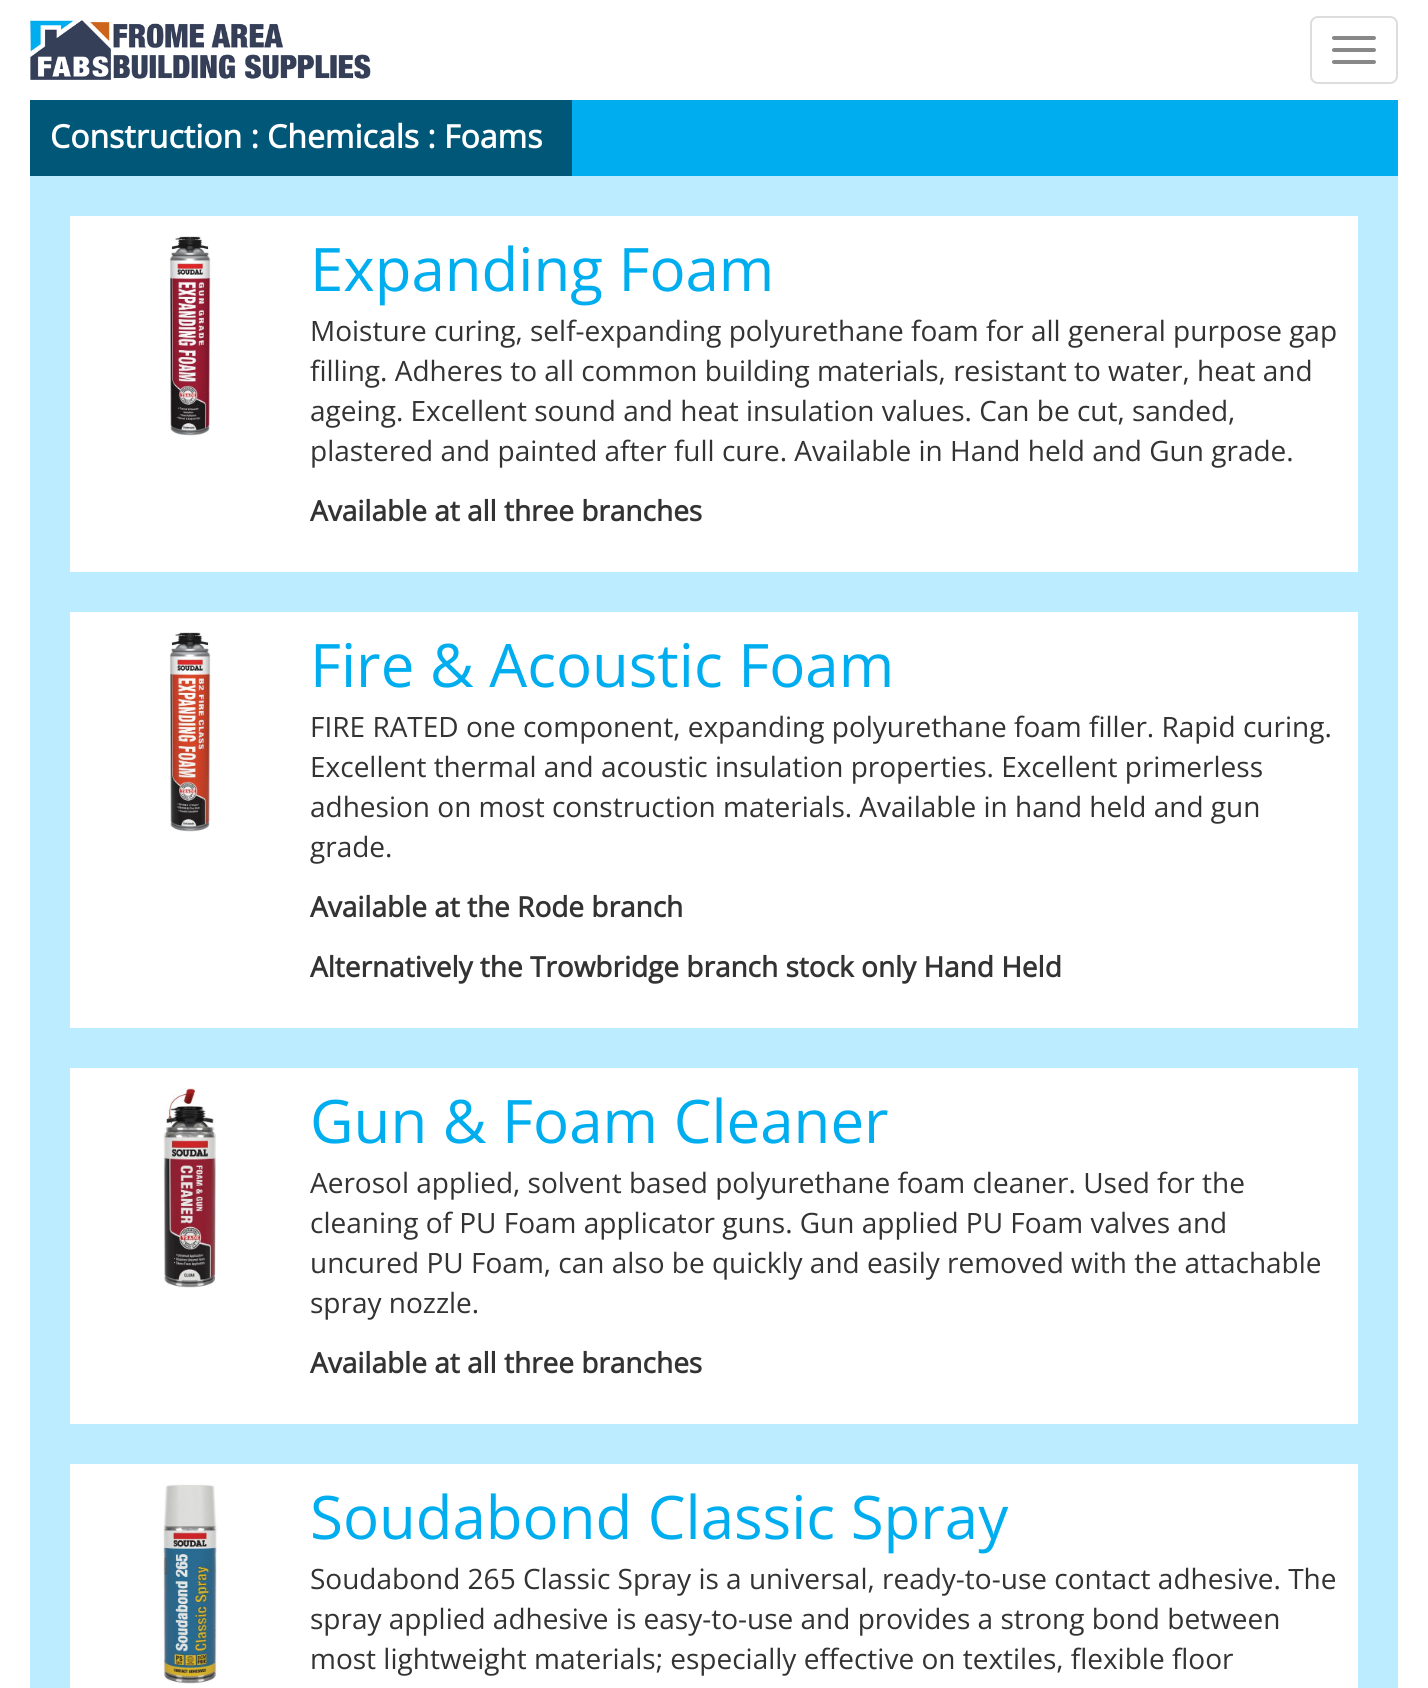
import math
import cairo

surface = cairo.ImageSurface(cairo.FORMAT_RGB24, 1428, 1688)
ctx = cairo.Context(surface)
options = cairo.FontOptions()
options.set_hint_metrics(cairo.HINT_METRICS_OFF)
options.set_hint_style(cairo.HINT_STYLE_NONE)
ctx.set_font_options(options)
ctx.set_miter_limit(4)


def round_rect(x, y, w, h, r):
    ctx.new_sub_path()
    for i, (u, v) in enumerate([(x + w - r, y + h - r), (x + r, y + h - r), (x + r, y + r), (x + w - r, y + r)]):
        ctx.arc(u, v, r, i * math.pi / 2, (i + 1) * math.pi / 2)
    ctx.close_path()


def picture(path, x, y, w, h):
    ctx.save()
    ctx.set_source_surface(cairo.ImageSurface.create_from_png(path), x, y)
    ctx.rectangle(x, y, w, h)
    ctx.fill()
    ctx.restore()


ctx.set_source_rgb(1, 1, 1)
ctx.paint()
picture("img1.png", 30, 20, 341, 60)
round_rect(1311, 17, 86, 66, 7)
ctx.set_source_rgb(0.867, 0.867, 0.867)
ctx.stroke()
ctx.set_source_rgb(0.533, 0.533, 0.533)
round_rect(1332, 36, 44, 4, 2)
ctx.fill()
round_rect(1332, 48, 44, 4, 2)
ctx.fill()
round_rect(1332, 60, 44, 4, 2)
ctx.fill()
ctx.set_source_rgb(0.737, 0.925, 1)
ctx.rectangle(30, 176, 1368, 1512)
ctx.fill()
ctx.set_source_rgb(0, 0.678, 0.937)
ctx.rectangle(572, 100, 826, 76)
ctx.fill()
ctx.set_source_rgb(0, 0.341, 0.471)
ctx.rectangle(30, 100, 542, 76)
ctx.fill()
ctx.select_font_face("Open Sans", cairo.FONT_SLANT_NORMAL, cairo.FONT_WEIGHT_BOLD)
ctx.set_font_size(32)
ctx.set_source_rgb(1, 1, 1)
ctx.move_to(50, 148)
ctx.show_text("Construction : Chemicals : Foams")
ctx.rectangle(70, 216, 1288, 356)
ctx.fill()
picture("img2.png", 169, 236, 46, 200)
ctx.select_font_face("Open Sans")
ctx.set_font_size(60)
ctx.set_source_rgb(0, 0.678, 0.937)
ctx.move_to(310, 291)
ctx.show_text("Expanding Foam")
ctx.set_font_size(28)
ctx.set_source_rgb(0.2, 0.2, 0.2)
ctx.move_to(310, 341)
ctx.show_text("Moisture curing, self-expanding polyurethane foam for all general purpose gap")
ctx.move_to(310, 381)
ctx.show_text("filling. Adheres to all common building materials, resistant to water, heat and")
ctx.move_to(310, 421)
ctx.show_text("ageing. Excellent sound and heat insulation values. Can be cut, sanded,")
ctx.move_to(310, 461)
ctx.show_text("plastered and painted after full cure. Available in Hand held and Gun grade.")
ctx.select_font_face("Open Sans", cairo.FONT_SLANT_NORMAL, cairo.FONT_WEIGHT_BOLD)
ctx.move_to(310, 521)
ctx.show_text("Available at all three branches")
ctx.set_source_rgb(1, 1, 1)
ctx.rectangle(70, 612, 1288, 416)
ctx.fill()
picture("img3.png", 169, 632, 43, 200)
ctx.select_font_face("Open Sans")
ctx.set_font_size(60)
ctx.set_source_rgb(0, 0.678, 0.937)
ctx.move_to(310, 687)
ctx.show_text("Fire & Acoustic Foam")
ctx.set_font_size(28)
ctx.set_source_rgb(0.2, 0.2, 0.2)
ctx.move_to(310, 737)
ctx.show_text("FIRE RATED one component, expanding polyurethane foam filler. Rapid curing.")
ctx.move_to(310, 777)
ctx.show_text("Excellent thermal and acoustic insulation properties. Excellent primerless")
ctx.move_to(310, 817)
ctx.show_text("adhesion on most construction materials. Available in hand held and gun")
ctx.move_to(310, 857)
ctx.show_text("grade.")
ctx.select_font_face("Open Sans", cairo.FONT_SLANT_NORMAL, cairo.FONT_WEIGHT_BOLD)
ctx.move_to(310, 917)
ctx.show_text("Available at the Rode branch")
ctx.move_to(310, 977)
ctx.show_text("Alternatively the Trowbridge branch stock only Hand Held")
ctx.set_source_rgb(1, 1, 1)
ctx.rectangle(70, 1068, 1288, 356)
ctx.fill()
picture("img4.png", 163, 1088, 53, 200)
ctx.select_font_face("Open Sans")
ctx.set_font_size(60)
ctx.set_source_rgb(0, 0.678, 0.937)
ctx.move_to(310, 1143)
ctx.show_text("Gun & Foam Cleaner")
ctx.set_font_size(28)
ctx.set_source_rgb(0.2, 0.2, 0.2)
ctx.move_to(310, 1193)
ctx.show_text("Aerosol applied, solvent based polyurethane foam cleaner. Used for the")
ctx.move_to(310, 1233)
ctx.show_text("cleaning of PU Foam applicator guns. Gun applied PU Foam valves and")
ctx.move_to(310, 1273)
ctx.show_text("uncured PU Foam, can also be quickly and easily removed with the attachable")
ctx.move_to(310, 1313)
ctx.show_text("spray nozzle.")
ctx.select_font_face("Open Sans", cairo.FONT_SLANT_NORMAL, cairo.FONT_WEIGHT_BOLD)
ctx.move_to(310, 1373)
ctx.show_text("Available at all three branches")
ctx.set_source_rgb(1, 1, 1)
ctx.rectangle(70, 1464, 1288, 224)
ctx.fill()
picture("img5.png", 160, 1484, 61, 200)
ctx.select_font_face("Open Sans")
ctx.set_font_size(60)
ctx.set_source_rgb(0, 0.678, 0.937)
ctx.move_to(310, 1539)
ctx.show_text("Soudabond Classic Spray")
ctx.set_font_size(28)
ctx.set_source_rgb(0.2, 0.2, 0.2)
ctx.move_to(310, 1589)
ctx.show_text("Soudabond 265 Classic Spray is a universal, ready-to-use contact adhesive. The")
ctx.move_to(310, 1629)
ctx.show_text("spray applied adhesive is easy-to-use and provides a strong bond between")
ctx.move_to(310, 1669)
ctx.show_text("most lightweight materials; especially effective on textiles, flexible floor")
surface.write_to_png("page.png")
